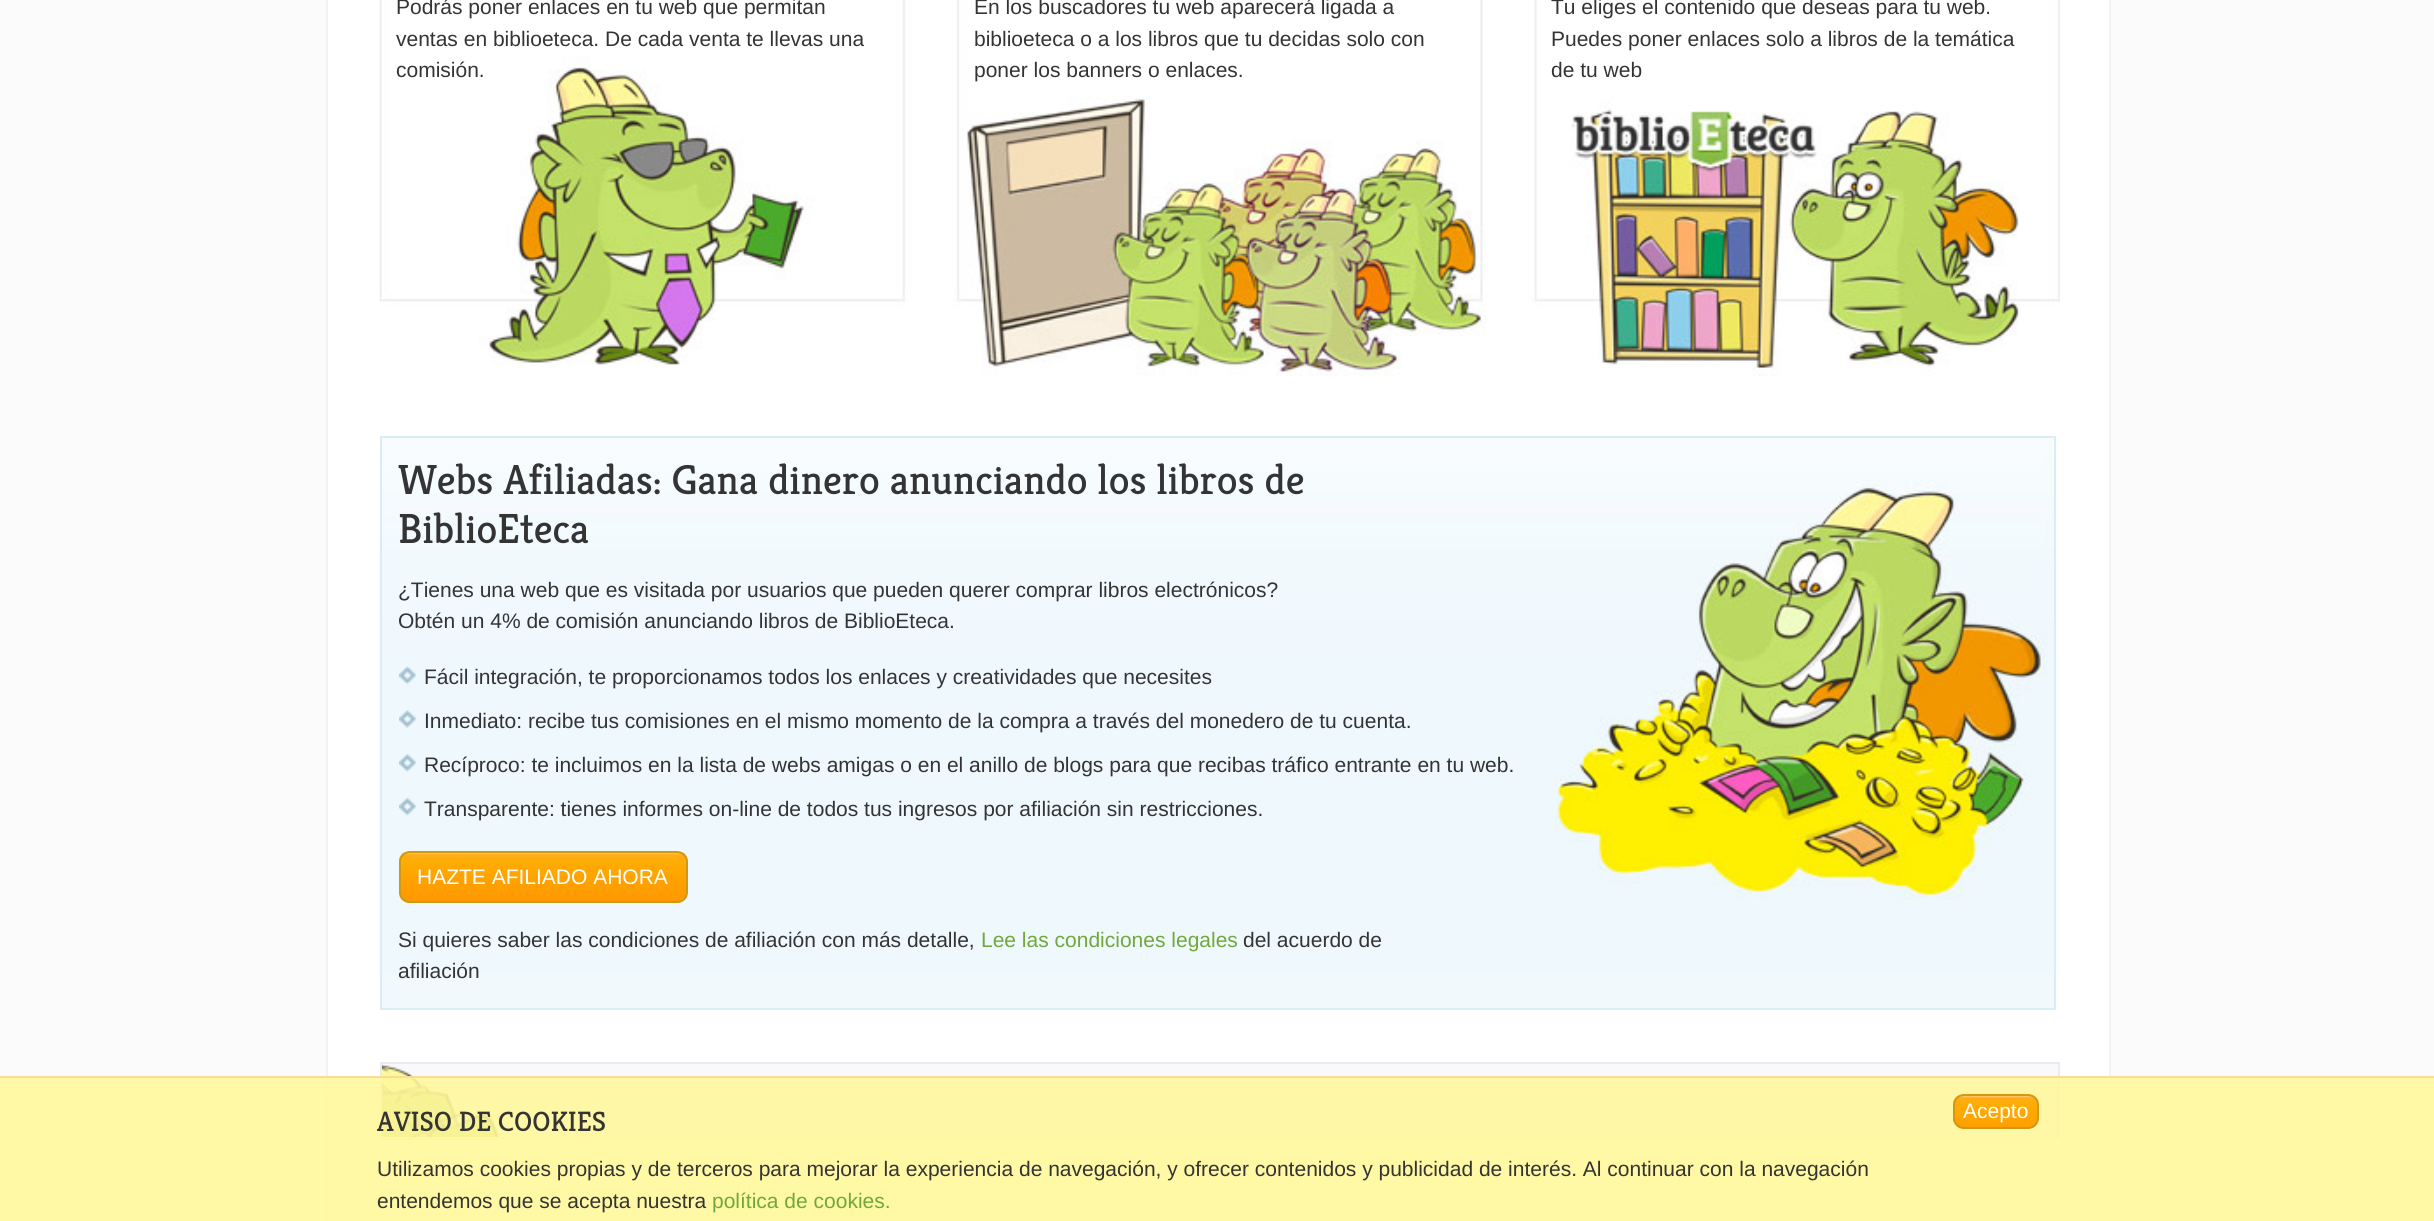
import math
import cairo

surface = cairo.ImageSurface(cairo.FORMAT_RGB24, 2434, 1221)
ctx = cairo.Context(surface)
options = cairo.FontOptions()
options.set_hint_metrics(cairo.HINT_METRICS_OFF)
options.set_hint_style(cairo.HINT_STYLE_NONE)
ctx.set_font_options(options)
ctx.set_miter_limit(4)


def round_rect(x, y, w, h, r):
    ctx.new_sub_path()
    for i, (u, v) in enumerate([(x + w - r, y + h - r), (x + r, y + h - r), (x + r, y + r), (x + w - r, y + r)]):
        ctx.arc(u, v, r, i * math.pi / 2, (i + 1) * math.pi / 2)
    ctx.close_path()


def picture(path, x, y, w, h):
    ctx.save()
    ctx.set_source_surface(cairo.ImageSurface.create_from_png(path), x, y)
    ctx.rectangle(x, y, w, h)
    ctx.fill()
    ctx.restore()


ctx.set_source_rgb(0.984, 0.984, 0.984)
ctx.paint()
ctx.set_source_rgb(1, 1, 1)
ctx.rectangle(328, 0, 1781, 1221)
ctx.fill()
ctx.set_source_rgb(0.949, 0.949, 0.949)
ctx.rectangle(2109, 0, 2, 1221)
ctx.fill()
ctx.rectangle(326, 0, 2, 1221)
ctx.fill()
picture("img1.png", 379, 0, 1681, 377)
ctx.select_font_face("Liberation Sans")
ctx.set_font_size(21)
ctx.set_source_rgb(0.204, 0.204, 0.204)
ctx.move_to(396, 14)
ctx.show_text("Podrás poner enlaces en tu web que permitan")
ctx.move_to(396, 46)
ctx.show_text("ventas en biblioeteca. De cada venta te llevas una")
ctx.move_to(396, 77)
ctx.show_text("comisión.")
ctx.move_to(974, 14)
ctx.show_text("En los buscadores tu web aparecerá ligada a")
ctx.move_to(974, 46)
ctx.show_text("biblioeteca o a los libros que tu decidas solo con")
ctx.move_to(974, 77)
ctx.show_text("poner los banners o enlaces.")
ctx.move_to(1551, 14)
ctx.show_text("Tu eliges el contenido que deseas para tu web.")
ctx.move_to(1551, 46)
ctx.show_text("Puedes poner enlaces solo a libros de la temática")
ctx.move_to(1551, 77)
ctx.show_text("de tu web")
ctx.set_source_rgb(0.945, 0.973, 0.992)
ctx.rectangle(382, 974, 1672, 34)
ctx.fill()
picture("img2.png", 379, 438, 1678, 536)
ctx.rectangle(381, 437, 1674, 572)
ctx.set_source_rgb(0.863, 0.922, 0.961)
ctx.stroke()
ctx.select_font_face("Kreon Light")
ctx.set_font_size(42)
ctx.set_source_rgb(0.204, 0.204, 0.204)
ctx.move_to(398, 494)
ctx.show_text("Webs Afiliadas: Gana dinero anunciando los libros de")
ctx.move_to(398, 543)
ctx.show_text("BiblioEteca")
ctx.select_font_face("Liberation Sans")
ctx.set_font_size(21)
ctx.move_to(398, 597)
ctx.show_text("¿Tienes una web que es visitada por usuarios que pueden querer comprar libros electrónicos?")
ctx.move_to(398, 628)
ctx.show_text("Obtén un 4% de comisión anunciando libros de BiblioEteca.")
picture("img3.png", 399, 666, 18, 19)
ctx.move_to(424, 684)
ctx.show_text("Fácil integración, te proporcionamos todos los enlaces y creatividades que necesites")
picture("img4.png", 399, 710, 18, 18)
ctx.move_to(424, 728)
ctx.show_text("Inmediato: recibe tus comisiones en el mismo momento de la compra a través del monedero de tu cuenta.")
picture("img5.png", 399, 754, 18, 18)
ctx.move_to(424, 772)
ctx.show_text("Recíproco: te incluimos en la lista de webs amigas o en el anillo de blogs para que recibas tráfico entrante en tu web.")
picture("img6.png", 399, 797, 18, 19)
ctx.move_to(424, 816)
ctx.show_text("Transparente: tienes informes on-line de todos tus ingresos por afiliación sin restricciones.")
picture("img7.png", 399, 852, 289, 51)
round_rect(400, 852, 287, 50, 10)
ctx.set_source_rgb(0.82, 0.6, 0.071)
ctx.stroke()
ctx.set_source_rgb(1, 1, 1)
ctx.move_to(417, 884)
ctx.show_text("HAZTE AFILIADO AHORA")
ctx.set_source_rgb(0.204, 0.204, 0.204)
ctx.move_to(398, 947)
ctx.show_text("Si quieres saber las condiciones de afiliación con más detalle,")
ctx.set_source_rgb(0.439, 0.659, 0.231)
ctx.move_to(981, 947)
ctx.show_text("Lee las condiciones legales")
ctx.set_source_rgb(0.204, 0.204, 0.204)
ctx.move_to(1243, 947)
ctx.show_text("del acuerdo de")
ctx.move_to(398, 978)
ctx.show_text("afiliación")
ctx.set_source_rgb(0.973, 0.976, 0.984)
ctx.rectangle(382, 1064, 1676, 73)
ctx.fill()
picture("img8.png", 381, 1064, 119, 76)
ctx.rectangle(381, 1063, 1678, 75)
ctx.set_source_rgb(0.91, 0.922, 0.945)
ctx.stroke()
ctx.set_source_rgba(1, 0.969, 0.608, 0.9)
ctx.rectangle(0, 1078, 2434, 143)
ctx.fill()
ctx.set_source_rgb(1, 0.855, 0.588)
ctx.rectangle(0, 1076, 2434, 2)
ctx.fill()
picture("img9.png", 1953, 1095, 86, 34)
ctx.select_font_face("Kreon Light")
ctx.set_font_size(28)
ctx.set_source_rgb(0.204, 0.204, 0.204)
ctx.move_to(377, 1131)
ctx.show_text("AVISO DE COOKIES")
round_rect(1954, 1095, 84, 33, 10)
ctx.set_source_rgb(0.82, 0.6, 0.071)
ctx.stroke()
ctx.select_font_face("Liberation Sans")
ctx.set_font_size(21)
ctx.set_source_rgb(1, 1, 1)
ctx.move_to(1963, 1118)
ctx.show_text("Acepto")
ctx.set_source_rgb(0.204, 0.204, 0.204)
ctx.move_to(377, 1176)
ctx.show_text("Utilizamos cookies propias y de terceros para mejorar la experiencia de navegación, y ofrecer contenidos y publicidad de interés. Al continuar con la navegación")
ctx.move_to(377, 1208)
ctx.show_text("entendemos que se acepta nuestra")
ctx.set_source_rgb(0.439, 0.659, 0.231)
ctx.move_to(712, 1208)
ctx.show_text("política de cookies.")
surface.write_to_png("page.png")
